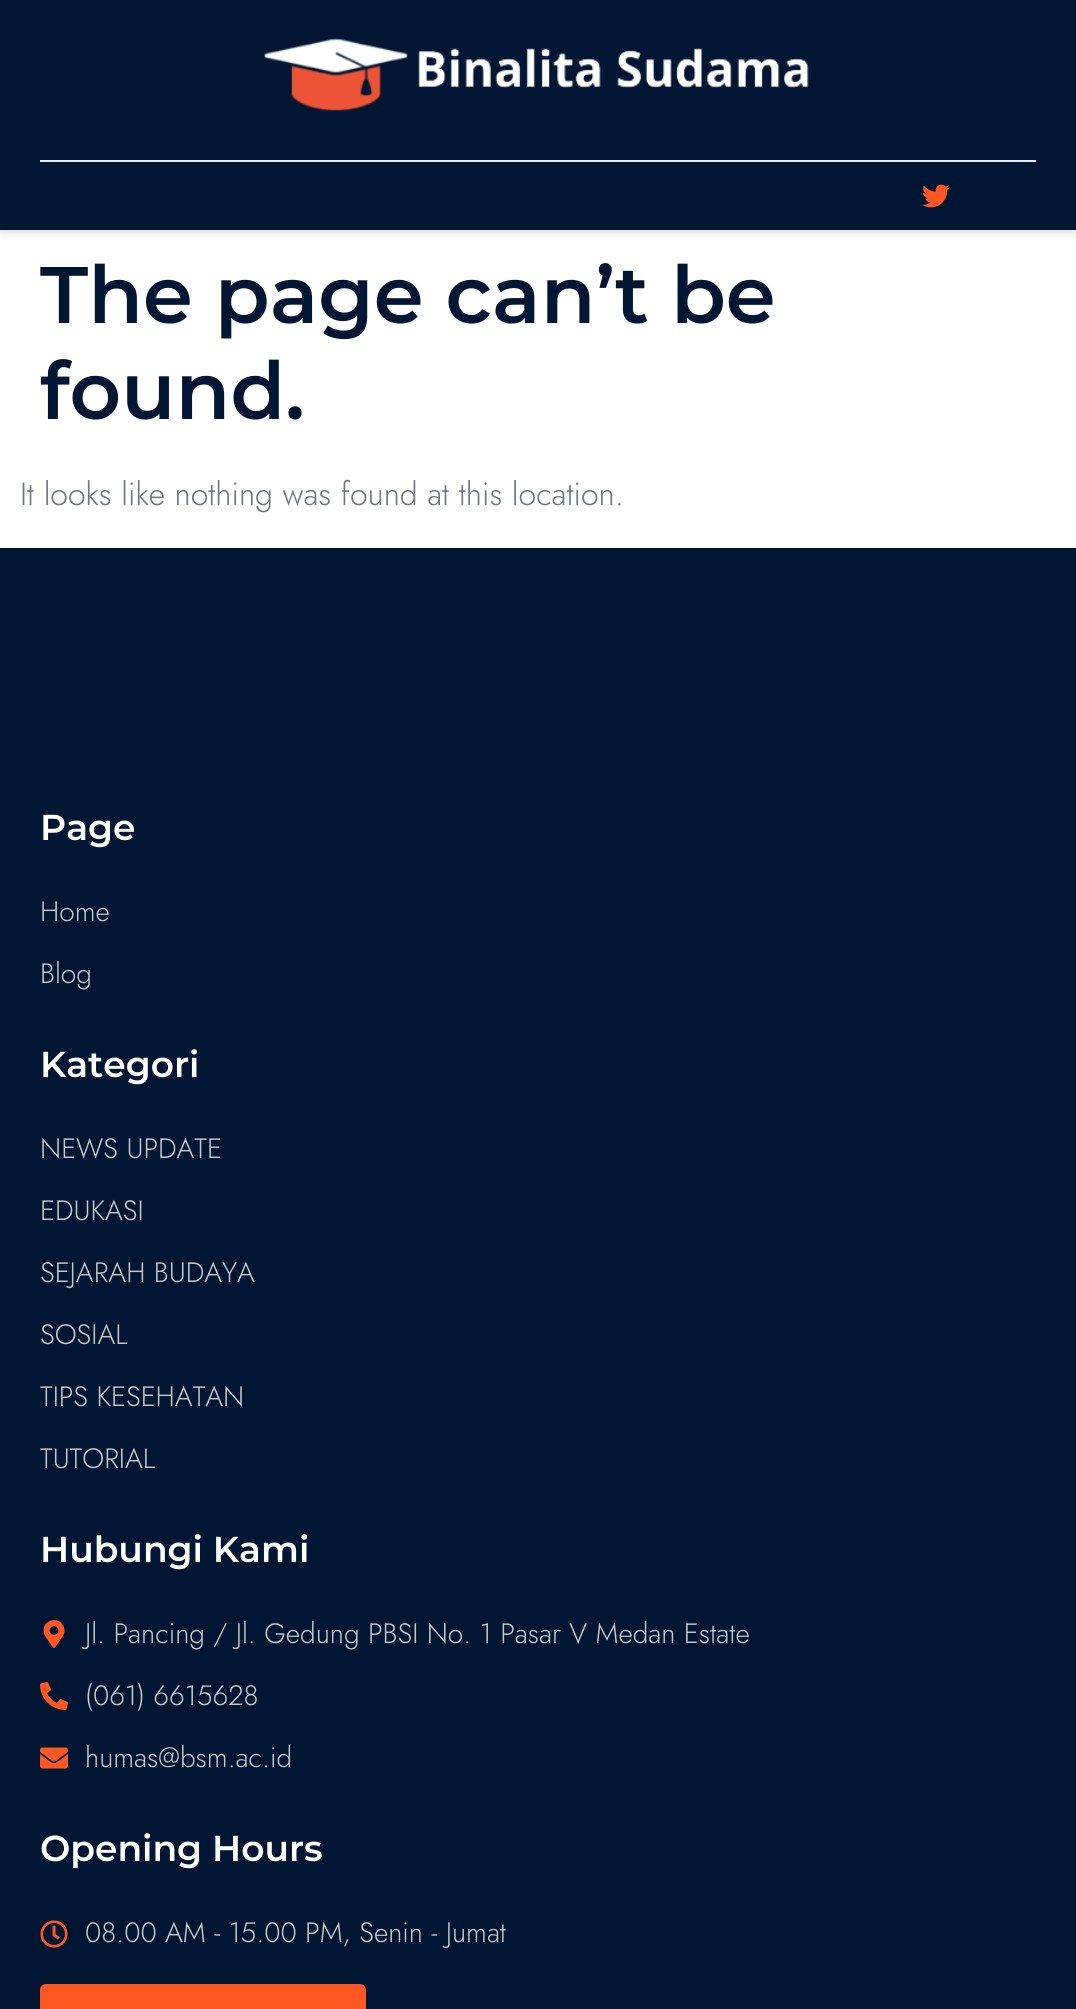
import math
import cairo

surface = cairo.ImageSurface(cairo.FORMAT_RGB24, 1076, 2009)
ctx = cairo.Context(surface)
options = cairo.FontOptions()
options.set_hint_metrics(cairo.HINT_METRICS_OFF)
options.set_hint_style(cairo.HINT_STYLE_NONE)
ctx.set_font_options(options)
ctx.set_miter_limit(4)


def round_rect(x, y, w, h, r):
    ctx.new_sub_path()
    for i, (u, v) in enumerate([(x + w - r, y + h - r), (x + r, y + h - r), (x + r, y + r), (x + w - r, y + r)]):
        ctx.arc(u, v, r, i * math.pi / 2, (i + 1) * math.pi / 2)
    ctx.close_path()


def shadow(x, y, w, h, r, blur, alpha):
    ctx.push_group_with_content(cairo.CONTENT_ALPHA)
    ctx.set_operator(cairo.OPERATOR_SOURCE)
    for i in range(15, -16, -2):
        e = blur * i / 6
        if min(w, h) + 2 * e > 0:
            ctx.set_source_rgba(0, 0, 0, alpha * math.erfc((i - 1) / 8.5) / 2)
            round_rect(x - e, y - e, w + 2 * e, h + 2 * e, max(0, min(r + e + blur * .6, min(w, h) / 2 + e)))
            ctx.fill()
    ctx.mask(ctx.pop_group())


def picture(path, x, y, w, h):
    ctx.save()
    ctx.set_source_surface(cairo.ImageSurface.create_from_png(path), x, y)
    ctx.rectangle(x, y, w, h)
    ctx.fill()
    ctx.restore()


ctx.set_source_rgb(1, 1, 1)
ctx.paint()
ctx.set_source_rgb(0, 0, 0)
shadow(0, 2, 1076, 230, 0, 5, 0.15)
ctx.set_source_rgb(0.004, 0.086, 0.2)
ctx.rectangle(0, 0, 1076, 230)
ctx.fill()
picture("img1.png", 264, 38, 545, 74)
ctx.set_source_rgb(0.906, 0.922, 0.941)
ctx.rectangle(40, 160, 996, 2)
ctx.fill()
picture("img2.png", 922, 184, 28, 24)
ctx.select_font_face("Montserrat SemiBold")
ctx.set_font_size(80)
ctx.set_source_rgb(0.004, 0.086, 0.2)
ctx.move_to(40, 323)
ctx.show_text("The page can’t be")
ctx.move_to(40, 419)
ctx.show_text("found.")
ctx.select_font_face("Jost Light")
ctx.set_font_size(32)
ctx.set_source_rgb(0.435, 0.455, 0.494)
ctx.move_to(20, 505)
ctx.show_text("It looks like nothing was found at this location.")
ctx.set_source_rgb(0.004, 0.086, 0.2)
ctx.rectangle(0, 548, 1076, 1461)
ctx.fill()
ctx.select_font_face("Montserrat SemiBold")
ctx.set_font_size(36)
ctx.set_source_rgb(1, 1, 1)
ctx.move_to(40, 840)
ctx.show_text("Page")
ctx.select_font_face("Jost Light")
ctx.set_font_size(28)
ctx.set_source_rgb(0.784, 0.784, 0.784)
ctx.move_to(40, 921)
ctx.show_text("Home")
ctx.move_to(40, 983)
ctx.show_text("Blog")
ctx.select_font_face("Montserrat SemiBold")
ctx.set_font_size(36)
ctx.set_source_rgb(1, 1, 1)
ctx.move_to(40, 1077)
ctx.show_text("Kategori")
ctx.select_font_face("Jost Light")
ctx.set_font_size(28)
ctx.set_source_rgb(0.784, 0.784, 0.784)
ctx.move_to(40, 1158)
ctx.show_text("NEWS UPDATE")
ctx.move_to(40, 1220)
ctx.show_text("EDUKASI")
ctx.move_to(40, 1282)
ctx.show_text("SEJARAH BUDAYA")
ctx.move_to(40, 1344)
ctx.show_text("SOSIAL")
ctx.move_to(40, 1406)
ctx.show_text("TIPS KESEHATAN")
ctx.move_to(40, 1468)
ctx.show_text("TUTORIAL")
ctx.select_font_face("Montserrat SemiBold")
ctx.set_font_size(36)
ctx.set_source_rgb(1, 1, 1)
ctx.move_to(40, 1562)
ctx.show_text("Hubungi Kami")
picture("img3.png", 43, 1620, 22, 28)
ctx.select_font_face("Jost Light")
ctx.set_font_size(28)
ctx.set_source_rgb(0.784, 0.784, 0.784)
ctx.move_to(85, 1643)
ctx.show_text("Jl. Pancing / Jl. Gedung PBSI No. 1 Pasar V Medan Estate")
picture("img4.png", 40, 1682, 28, 28)
ctx.move_to(85, 1705)
ctx.show_text("(061) 6615628")
picture("img5.png", 40, 1747, 28, 22)
ctx.move_to(85, 1767)
ctx.show_text("humas@bsm.ac.id")
ctx.select_font_face("Montserrat SemiBold")
ctx.set_font_size(36)
ctx.set_source_rgb(1, 1, 1)
ctx.move_to(40, 1861)
ctx.show_text("Opening Hours")
picture("img6.png", 40, 1920, 28, 28)
ctx.select_font_face("Jost Light")
ctx.set_font_size(28)
ctx.set_source_rgb(0.784, 0.784, 0.784)
ctx.move_to(85, 1942)
ctx.show_text("08.00 AM - 15.00 PM, Senin - Jumat")
ctx.set_source_rgb(1, 0.341, 0.133)
round_rect(40, 1984, 326, 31, 6)
ctx.fill()
surface.write_to_png("page.png")
